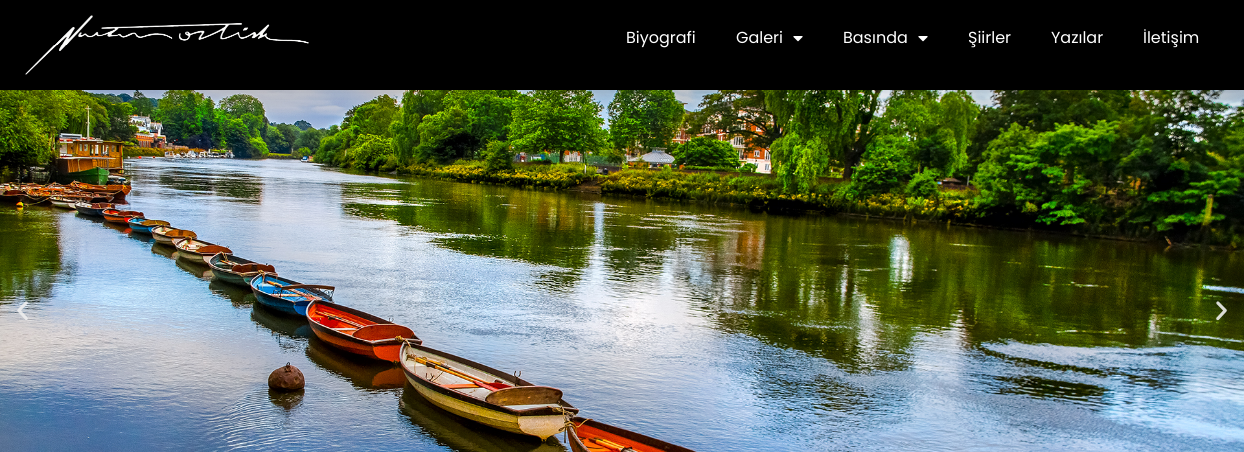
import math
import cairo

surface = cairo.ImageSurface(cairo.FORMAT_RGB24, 1244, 452)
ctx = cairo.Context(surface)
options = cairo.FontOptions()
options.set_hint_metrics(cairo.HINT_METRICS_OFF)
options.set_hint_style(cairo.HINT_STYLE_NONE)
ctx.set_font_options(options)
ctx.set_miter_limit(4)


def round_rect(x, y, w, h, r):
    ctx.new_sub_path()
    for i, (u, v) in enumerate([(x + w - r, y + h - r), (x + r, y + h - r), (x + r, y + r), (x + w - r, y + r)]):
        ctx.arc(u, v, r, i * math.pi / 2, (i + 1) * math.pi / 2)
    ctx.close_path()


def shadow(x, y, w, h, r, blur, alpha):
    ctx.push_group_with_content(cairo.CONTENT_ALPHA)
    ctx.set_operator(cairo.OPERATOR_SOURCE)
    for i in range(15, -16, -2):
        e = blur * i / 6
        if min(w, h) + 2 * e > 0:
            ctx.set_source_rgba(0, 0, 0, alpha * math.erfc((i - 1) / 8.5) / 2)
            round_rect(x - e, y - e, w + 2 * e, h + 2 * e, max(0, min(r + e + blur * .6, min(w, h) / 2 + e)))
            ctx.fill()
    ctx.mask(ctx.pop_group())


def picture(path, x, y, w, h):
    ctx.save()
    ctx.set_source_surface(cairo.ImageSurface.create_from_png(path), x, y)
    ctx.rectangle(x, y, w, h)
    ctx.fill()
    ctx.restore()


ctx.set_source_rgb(1, 1, 1)
ctx.paint()
picture("img3.png", 0, 90, 1244, 362)
ctx.set_source_rgb(0, 0, 0)
shadow(0, 0, 1244, 90, 0, 20, 0.16)
ctx.set_source_rgb(0, 0, 0)
ctx.rectangle(0, 0, 1244, 90)
ctx.fill()
picture("img1.png", 25, 15, 284, 60)
ctx.select_font_face("Poppins")
ctx.set_font_size(16)
ctx.set_source_rgb(1, 1, 1)
ctx.move_to(626, 43)
ctx.show_text("Biyografi")
ctx.move_to(736, 43)
ctx.show_text("Galeri")
picture("img2.png", 793, 36, 10, 6)
ctx.move_to(843, 43)
ctx.show_text("Basında")
picture("img2.png", 918, 36, 10, 6)
ctx.move_to(968, 43)
ctx.show_text("Şiirler")
ctx.move_to(1051, 43)
ctx.show_text("Yazılar")
ctx.move_to(1143, 43)
ctx.show_text("İletişim")
picture("img4.png", 17, 301, 11, 19)
picture("img5.png", 1216, 301, 11, 20)
surface.write_to_png("page.png")
